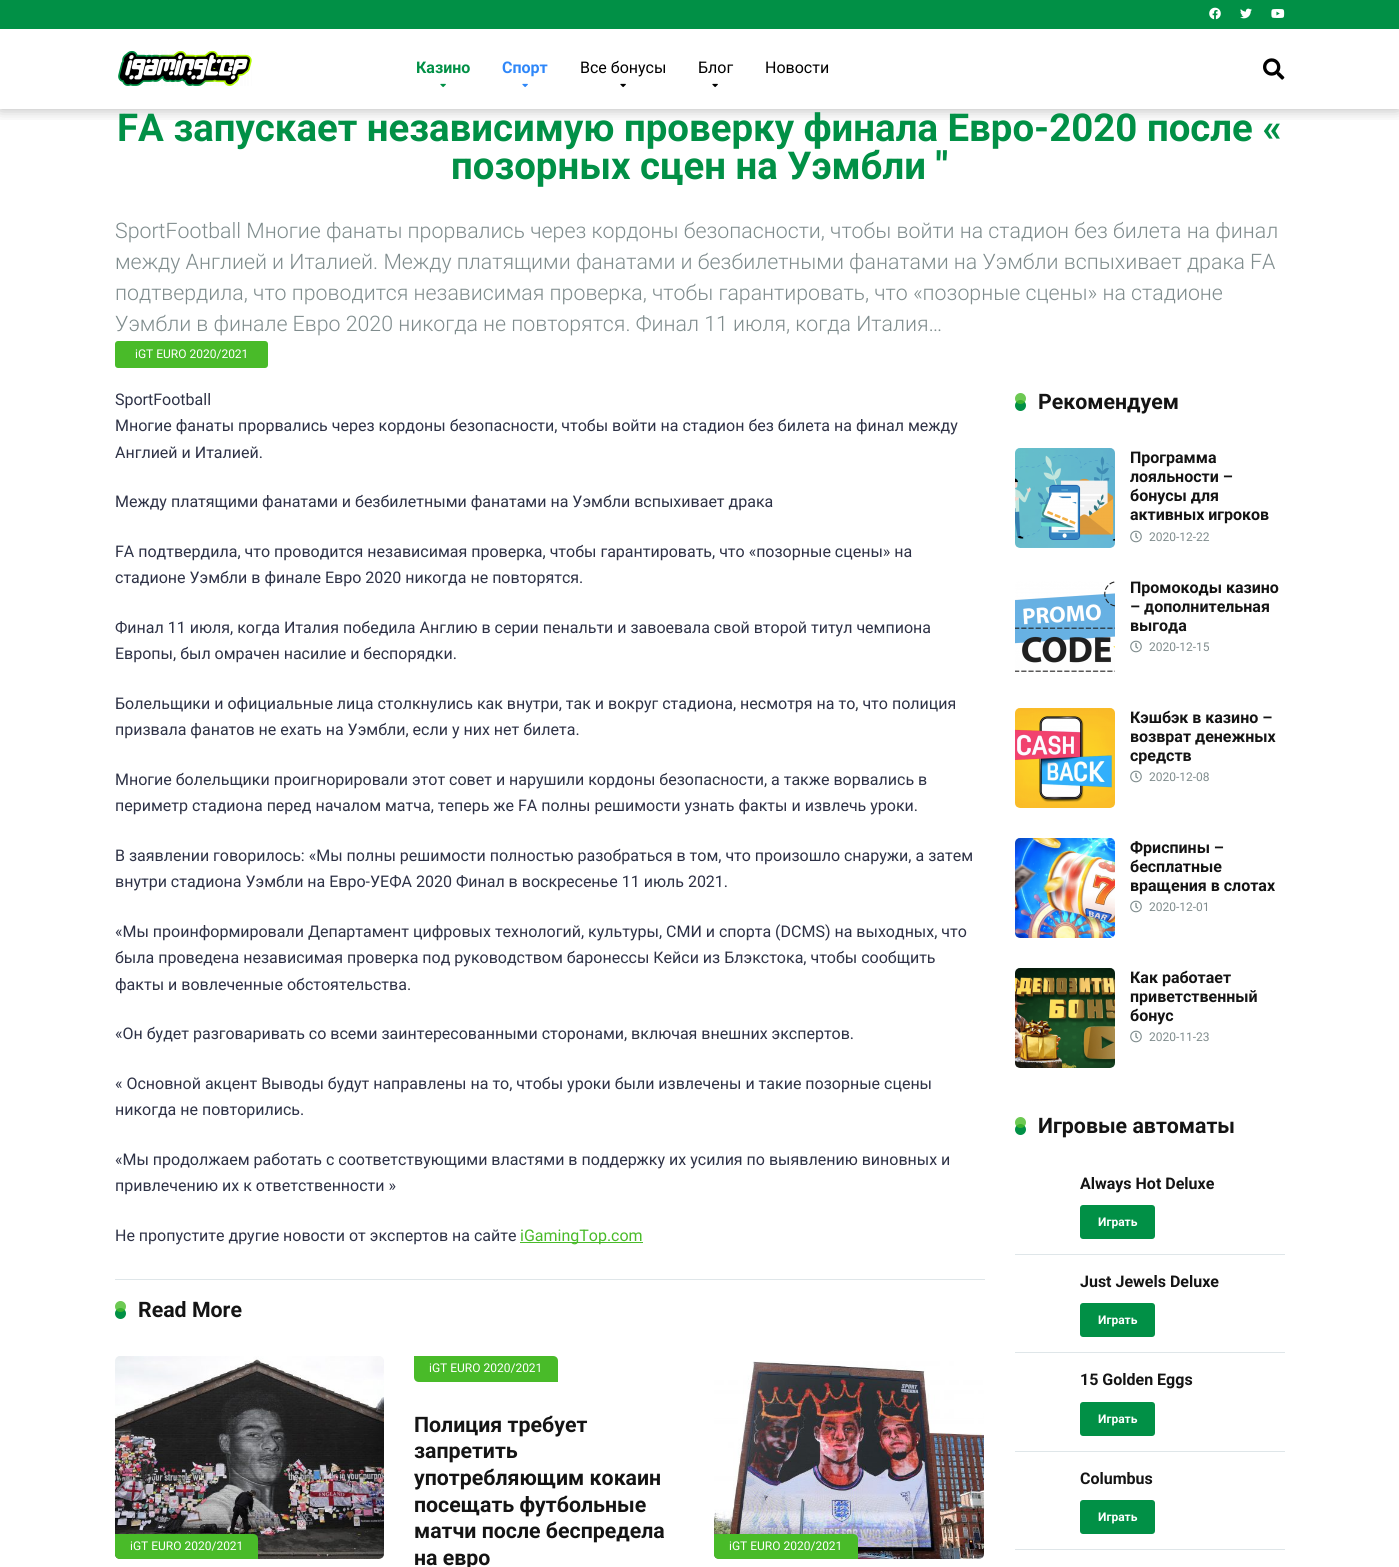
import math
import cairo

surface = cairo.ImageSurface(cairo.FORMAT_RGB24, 1399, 1567)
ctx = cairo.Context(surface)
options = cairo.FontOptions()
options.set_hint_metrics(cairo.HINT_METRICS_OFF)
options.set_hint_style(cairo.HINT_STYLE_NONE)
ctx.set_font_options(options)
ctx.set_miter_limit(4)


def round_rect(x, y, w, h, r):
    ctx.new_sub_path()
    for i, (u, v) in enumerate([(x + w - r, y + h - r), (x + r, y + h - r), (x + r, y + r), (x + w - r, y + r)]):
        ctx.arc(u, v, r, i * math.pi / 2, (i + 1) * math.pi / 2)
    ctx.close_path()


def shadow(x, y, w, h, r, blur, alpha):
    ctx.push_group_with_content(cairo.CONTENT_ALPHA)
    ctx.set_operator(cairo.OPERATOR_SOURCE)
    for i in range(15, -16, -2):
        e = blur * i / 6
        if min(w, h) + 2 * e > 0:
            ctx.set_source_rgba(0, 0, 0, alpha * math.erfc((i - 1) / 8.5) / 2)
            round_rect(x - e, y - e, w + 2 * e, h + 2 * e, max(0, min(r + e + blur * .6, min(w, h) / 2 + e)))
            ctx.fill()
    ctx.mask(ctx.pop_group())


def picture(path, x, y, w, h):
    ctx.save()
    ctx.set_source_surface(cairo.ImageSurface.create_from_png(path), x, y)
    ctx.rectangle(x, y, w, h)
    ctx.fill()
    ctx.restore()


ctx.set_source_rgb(1, 1, 1)
ctx.paint()
ctx.save()
ctx.rectangle(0, 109, 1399, 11)
ctx.clip()
ctx.set_source_rgb(0, 0, 0)
shadow(0, 0, 1399, 109, 0, 7.5, 0.3)
ctx.restore()
ctx.set_source_rgb(0.004, 0.565, 0.275)
ctx.rectangle(0, 0, 1399, 29)
ctx.fill()
picture("img1.png", 1209, 7, 12, 13)
picture("img2.png", 1240, 8, 12, 11)
picture("img3.png", 1271, 9, 14, 9)
picture("img4.png", 118, 50, 134, 36)
ctx.select_font_face("Roboto", cairo.FONT_SLANT_NORMAL, cairo.FONT_WEIGHT_BOLD)
ctx.set_font_size(16)
ctx.move_to(416, 73)
ctx.show_text("Казино")
picture("img5.png", 440, 83, 6, 5)
ctx.set_source_rgb(0.184, 0.529, 0.973)
ctx.move_to(502, 73)
ctx.show_text("Спорт")
picture("img6.png", 522, 83, 6, 5)
ctx.select_font_face("Roboto")
ctx.set_source_rgb(0, 0, 0)
ctx.move_to(580, 73)
ctx.show_text("Все бонусы")
picture("img7.png", 620, 83, 6, 5)
ctx.move_to(698, 73)
ctx.show_text("Блог")
picture("img7.png", 712, 83, 6, 5)
ctx.move_to(765, 73)
ctx.show_text("Новости")
picture("img8.png", 1263, 58, 22, 22)
ctx.select_font_face("Roboto", cairo.FONT_SLANT_NORMAL, cairo.FONT_WEIGHT_BOLD)
ctx.set_font_size(38.4)
ctx.set_source_rgb(0.004, 0.565, 0.275)
ctx.move_to(117, 141)
ctx.show_text("FA запускает независимую проверку финала Евро-2020 после «")
ctx.move_to(451, 179)
ctx.show_text("позорных сцен на Уэмбли ''")
ctx.select_font_face("Roboto Light")
ctx.set_font_size(21.33)
ctx.set_source_rgb(0.498, 0.549, 0.553)
ctx.move_to(115, 238)
ctx.show_text("SportFootball Многие фанаты прорвались через кордоны безопасности, чтобы войти на стадион без билета на финал")
ctx.move_to(115, 269)
ctx.show_text("между Англией и Италией. Между платящими фанатами и безбилетными фанатами на Уэмбли вспыхивает драка FA")
ctx.move_to(115, 300)
ctx.show_text("подтвердила, что проводится независимая проверка, чтобы гарантировать, что «позорные сцены» на стадионе")
ctx.move_to(115, 331)
ctx.show_text("Уэмбли в финале Евро 2020 никогда не повторятся. Финал 11 июля, когда Италия…")
ctx.set_source_rgb(0.286, 0.733, 0.161)
round_rect(115, 341, 153, 27, 3)
ctx.fill()
ctx.select_font_face("Roboto")
ctx.set_font_size(12)
ctx.set_source_rgb(1, 1, 1)
ctx.move_to(135, 358)
ctx.show_text("iGT EURO 2020/2021")
ctx.set_source_rgb(0.875, 0.902, 0.914)
ctx.rectangle(115, 1279, 870, 1)
ctx.fill()
ctx.set_font_size(16)
ctx.set_source_rgb(0.18, 0.196, 0.275)
ctx.move_to(115, 405)
ctx.show_text("SportFootball")
ctx.move_to(115, 431)
ctx.show_text("Многие фанаты прорвались через кордоны безопасности, чтобы войти на стадион без билета на финал между")
ctx.move_to(115, 458)
ctx.show_text("Англией и Италией.")
ctx.move_to(115, 507)
ctx.show_text("Между платящими фанатами и безбилетными фанатами на Уэмбли вспыхивает драка")
ctx.move_to(115, 557)
ctx.show_text("FA подтвердила, что проводится независимая проверка, чтобы гарантировать, что «позорные сцены» на")
ctx.move_to(115, 583)
ctx.show_text("стадионе Уэмбли в финале Евро 2020 никогда не повторятся.")
ctx.move_to(115, 633)
ctx.show_text("Финал 11 июля, когда Италия победила Англию в серии пенальти и завоевала свой второй титул чемпиона")
ctx.move_to(115, 659)
ctx.show_text("Европы, был омрачен насилие и беспорядки.")
ctx.move_to(115, 709)
ctx.show_text("Болельщики и официальные лица столкнулись как внутри, так и вокруг стадиона, несмотря на то, что полиция")
ctx.move_to(115, 735)
ctx.show_text("призвала фанатов не ехать на Уэмбли, если у них нет билета.")
ctx.move_to(115, 785)
ctx.show_text("Многие болельщики проигнорировали этот совет и нарушили кордоны безопасности, а также ворвались в")
ctx.move_to(115, 811)
ctx.show_text("периметр стадиона перед началом матча, теперь же FA полны решимости узнать факты и извлечь уроки.")
ctx.move_to(115, 861)
ctx.show_text("В заявлении говорилось: «Мы полны решимости полностью разобраться в том, что произошло снаружи, а затем")
ctx.move_to(115, 887)
ctx.show_text("внутри стадиона Уэмбли на Евро-УЕФА 2020 Финал в воскресенье 11 июль 2021.")
ctx.move_to(115, 937)
ctx.show_text("«Мы проинформировали Департамент цифровых технологий, культуры, СМИ и спорта (DCMS) на выходных, что")
ctx.move_to(115, 963)
ctx.show_text("была проведена независимая проверка под руководством баронессы Кейси из Блэкстока, чтобы сообщить")
ctx.move_to(115, 990)
ctx.show_text("факты и вовлеченные обстоятельства.")
ctx.move_to(115, 1039)
ctx.show_text("«Он будет разговаривать со всеми заинтересованными сторонами, включая внешних экспертов.")
ctx.move_to(115, 1089)
ctx.show_text("« Основной акцент Выводы будут направлены на то, чтобы уроки были извлечены и такие позорные сцены")
ctx.move_to(115, 1115)
ctx.show_text("никогда не повторились.")
ctx.move_to(115, 1165)
ctx.show_text("«Мы продолжаем работать с соответствующими властями в поддержку их усилия по выявлению виновных и")
ctx.move_to(115, 1191)
ctx.show_text("привлечению их к ответственности »")
ctx.move_to(115, 1241)
ctx.show_text("Не пропустите другие новости от экспертов на сайте")
ctx.set_source_rgb(0.286, 0.733, 0.161)
ctx.rectangle(520, 1242, 123, 1)
ctx.fill()
ctx.move_to(520, 1241)
ctx.show_text("iGamingTop.com")
ctx.set_source_rgb(0.004, 0.565, 0.275)
ctx.new_path()
ctx.arc(120.5, 1313.5, 5.5, 0, 2 * math.pi)
ctx.fill()
ctx.set_source_rgba(0.286, 0.733, 0.161, 0.8)
ctx.arc(120.5, 1306.5, 5.5, 0, 2 * math.pi)
ctx.fill()
ctx.select_font_face("Roboto", cairo.FONT_SLANT_NORMAL, cairo.FONT_WEIGHT_BOLD)
ctx.set_font_size(21.33)
ctx.set_source_rgb(0.082, 0.082, 0.082)
ctx.move_to(138, 1317)
ctx.show_text("Read More")
picture("img9.png", 115, 1356, 269, 203)
ctx.set_source_rgb(0.286, 0.733, 0.161)
ctx.new_path()
ctx.move_to(115, 1534)
ctx.line_to(253, 1534)
ctx.curve_to(256, 1534, 258, 1536, 258, 1539)
ctx.line_to(258, 1559)
ctx.line_to(120, 1559)
ctx.curve_to(117, 1559, 115, 1557, 115, 1554)
ctx.close_path()
ctx.fill()
ctx.select_font_face("Roboto")
ctx.set_font_size(12)
ctx.set_source_rgb(1, 1, 1)
ctx.move_to(130, 1550)
ctx.show_text("iGT EURO 2020/2021")
ctx.set_source_rgb(0.286, 0.733, 0.161)
ctx.new_path()
ctx.move_to(414, 1356)
ctx.line_to(553, 1356)
ctx.curve_to(556, 1356, 558, 1358, 558, 1361)
ctx.line_to(558, 1382)
ctx.line_to(419, 1382)
ctx.curve_to(416, 1382, 414, 1380, 414, 1377)
ctx.close_path()
ctx.fill()
ctx.set_source_rgb(1, 1, 1)
ctx.move_to(429, 1372)
ctx.show_text("iGT EURO 2020/2021")
ctx.select_font_face("Roboto", cairo.FONT_SLANT_NORMAL, cairo.FONT_WEIGHT_BOLD)
ctx.set_font_size(21.33)
ctx.set_source_rgb(0.082, 0.082, 0.082)
ctx.move_to(414, 1432)
ctx.show_text("Полиция требует")
ctx.move_to(414, 1458)
ctx.show_text("запретить")
ctx.move_to(414, 1485)
ctx.show_text("употребляющим кокаин")
ctx.move_to(414, 1512)
ctx.show_text("посещать футбольные")
ctx.move_to(414, 1538)
ctx.show_text("матчи после беспредела")
ctx.move_to(414, 1565)
ctx.show_text("на евро")
picture("img10.png", 714, 1361, 270, 198)
ctx.set_source_rgb(0.286, 0.733, 0.161)
ctx.new_path()
ctx.move_to(714, 1534)
ctx.line_to(853, 1534)
ctx.curve_to(856, 1534, 858, 1536, 858, 1539)
ctx.line_to(858, 1559)
ctx.line_to(719, 1559)
ctx.curve_to(716, 1559, 714, 1557, 714, 1554)
ctx.close_path()
ctx.fill()
ctx.select_font_face("Roboto")
ctx.set_font_size(12)
ctx.set_source_rgb(1, 1, 1)
ctx.move_to(729, 1550)
ctx.show_text("iGT EURO 2020/2021")
ctx.set_source_rgb(0.004, 0.565, 0.275)
ctx.new_path()
ctx.arc(1020.5, 405.5, 5.5, 0, 2 * math.pi)
ctx.fill()
ctx.set_source_rgba(0.286, 0.733, 0.161, 0.8)
ctx.arc(1020.5, 398.5, 5.5, 0, 2 * math.pi)
ctx.fill()
ctx.select_font_face("Roboto", cairo.FONT_SLANT_NORMAL, cairo.FONT_WEIGHT_BOLD)
ctx.set_font_size(21.33)
ctx.set_source_rgb(0.082, 0.082, 0.082)
ctx.move_to(1038, 409)
ctx.show_text("Рекомендуем")
picture("img11.png", 1015, 448, 100, 100)
ctx.set_font_size(16)
ctx.move_to(1130, 463)
ctx.show_text("Программа")
ctx.move_to(1130, 482)
ctx.show_text("лояльности –")
ctx.move_to(1130, 501)
ctx.show_text("бонусы для")
ctx.move_to(1130, 520)
ctx.show_text("активных игроков")
picture("img12.png", 1130, 530, 12, 13)
ctx.select_font_face("Roboto")
ctx.set_font_size(12)
ctx.set_source_rgb(0.498, 0.549, 0.553)
ctx.move_to(1149, 541)
ctx.show_text("2020-12-22")
picture("img13.png", 1015, 581, 100, 91)
ctx.select_font_face("Roboto", cairo.FONT_SLANT_NORMAL, cairo.FONT_WEIGHT_BOLD)
ctx.set_font_size(16)
ctx.set_source_rgb(0.082, 0.082, 0.082)
ctx.move_to(1130, 593)
ctx.show_text("Промокоды казино")
ctx.move_to(1130, 612)
ctx.show_text("– дополнительная")
ctx.move_to(1130, 631)
ctx.show_text("выгода")
picture("img12.png", 1130, 640, 12, 13)
ctx.select_font_face("Roboto")
ctx.set_font_size(12)
ctx.set_source_rgb(0.498, 0.549, 0.553)
ctx.move_to(1149, 651)
ctx.show_text("2020-12-15")
picture("img14.png", 1015, 708, 100, 100)
ctx.select_font_face("Roboto", cairo.FONT_SLANT_NORMAL, cairo.FONT_WEIGHT_BOLD)
ctx.set_font_size(16)
ctx.set_source_rgb(0.082, 0.082, 0.082)
ctx.move_to(1130, 723)
ctx.show_text("Кэшбэк в казино –")
ctx.move_to(1130, 742)
ctx.show_text("возврат денежных")
ctx.move_to(1130, 761)
ctx.show_text("средств")
picture("img12.png", 1130, 770, 12, 13)
ctx.select_font_face("Roboto")
ctx.set_font_size(12)
ctx.set_source_rgb(0.498, 0.549, 0.553)
ctx.move_to(1149, 781)
ctx.show_text("2020-12-08")
picture("img15.png", 1015, 838, 100, 100)
ctx.select_font_face("Roboto", cairo.FONT_SLANT_NORMAL, cairo.FONT_WEIGHT_BOLD)
ctx.set_font_size(16)
ctx.set_source_rgb(0.082, 0.082, 0.082)
ctx.move_to(1130, 853)
ctx.show_text("Фриспины –")
ctx.move_to(1130, 872)
ctx.show_text("бесплатные")
ctx.move_to(1130, 891)
ctx.show_text("вращения в слотах")
picture("img12.png", 1130, 900, 12, 13)
ctx.select_font_face("Roboto")
ctx.set_font_size(12)
ctx.set_source_rgb(0.498, 0.549, 0.553)
ctx.move_to(1149, 911)
ctx.show_text("2020-12-01")
picture("img16.png", 1015, 968, 100, 100)
ctx.select_font_face("Roboto", cairo.FONT_SLANT_NORMAL, cairo.FONT_WEIGHT_BOLD)
ctx.set_font_size(16)
ctx.set_source_rgb(0.082, 0.082, 0.082)
ctx.move_to(1130, 983)
ctx.show_text("Как работает")
ctx.move_to(1130, 1002)
ctx.show_text("приветственный")
ctx.move_to(1130, 1021)
ctx.show_text("бонус")
picture("img12.png", 1130, 1030, 12, 13)
ctx.select_font_face("Roboto")
ctx.set_font_size(12)
ctx.set_source_rgb(0.498, 0.549, 0.553)
ctx.move_to(1149, 1041)
ctx.show_text("2020-11-23")
ctx.set_source_rgb(0.004, 0.565, 0.275)
ctx.new_path()
ctx.arc(1020.5, 1129.5, 5.5, 0, 2 * math.pi)
ctx.fill()
ctx.set_source_rgba(0.286, 0.733, 0.161, 0.8)
ctx.arc(1020.5, 1122.5, 5.5, 0, 2 * math.pi)
ctx.fill()
ctx.select_font_face("Roboto", cairo.FONT_SLANT_NORMAL, cairo.FONT_WEIGHT_BOLD)
ctx.set_font_size(21.33)
ctx.set_source_rgb(0.082, 0.082, 0.082)
ctx.move_to(1038, 1133)
ctx.show_text("Игровые автоматы")
ctx.set_source_rgb(0.875, 0.902, 0.914)
ctx.rectangle(1015, 1254, 270, 1)
ctx.fill()
ctx.set_font_size(16)
ctx.set_source_rgb(0.082, 0.082, 0.082)
ctx.move_to(1080, 1189)
ctx.show_text("Always Hot Deluxe")
ctx.set_source_rgb(0.004, 0.565, 0.275)
round_rect(1080, 1205, 75, 34, 3)
ctx.fill()
ctx.set_font_size(12)
ctx.set_source_rgb(1, 1, 1)
ctx.move_to(1098, 1226)
ctx.show_text("Играть")
ctx.set_source_rgb(0.875, 0.902, 0.914)
ctx.rectangle(1015, 1352, 270, 1)
ctx.fill()
ctx.set_font_size(16)
ctx.set_source_rgb(0.082, 0.082, 0.082)
ctx.move_to(1080, 1287)
ctx.show_text("Just Jewels Deluxe")
ctx.set_source_rgb(0.004, 0.565, 0.275)
round_rect(1080, 1303, 75, 34, 3)
ctx.fill()
ctx.set_font_size(12)
ctx.set_source_rgb(1, 1, 1)
ctx.move_to(1098, 1324)
ctx.show_text("Играть")
ctx.set_source_rgb(0.875, 0.902, 0.914)
ctx.rectangle(1015, 1451, 270, 1)
ctx.fill()
ctx.set_font_size(16)
ctx.set_source_rgb(0.082, 0.082, 0.082)
ctx.move_to(1080, 1385)
ctx.show_text("15 Golden Eggs")
ctx.set_source_rgb(0.004, 0.565, 0.275)
round_rect(1080, 1402, 75, 34, 3)
ctx.fill()
ctx.set_font_size(12)
ctx.set_source_rgb(1, 1, 1)
ctx.move_to(1098, 1423)
ctx.show_text("Играть")
ctx.set_source_rgb(0.875, 0.902, 0.914)
ctx.rectangle(1015, 1549, 270, 1)
ctx.fill()
ctx.set_font_size(16)
ctx.set_source_rgb(0.082, 0.082, 0.082)
ctx.move_to(1080, 1484)
ctx.show_text("Columbus")
ctx.set_source_rgb(0.004, 0.565, 0.275)
round_rect(1080, 1500, 75, 34, 3)
ctx.fill()
ctx.set_font_size(12)
ctx.set_source_rgb(1, 1, 1)
ctx.move_to(1098, 1521)
ctx.show_text("Играть")
surface.write_to_png("page.png")
